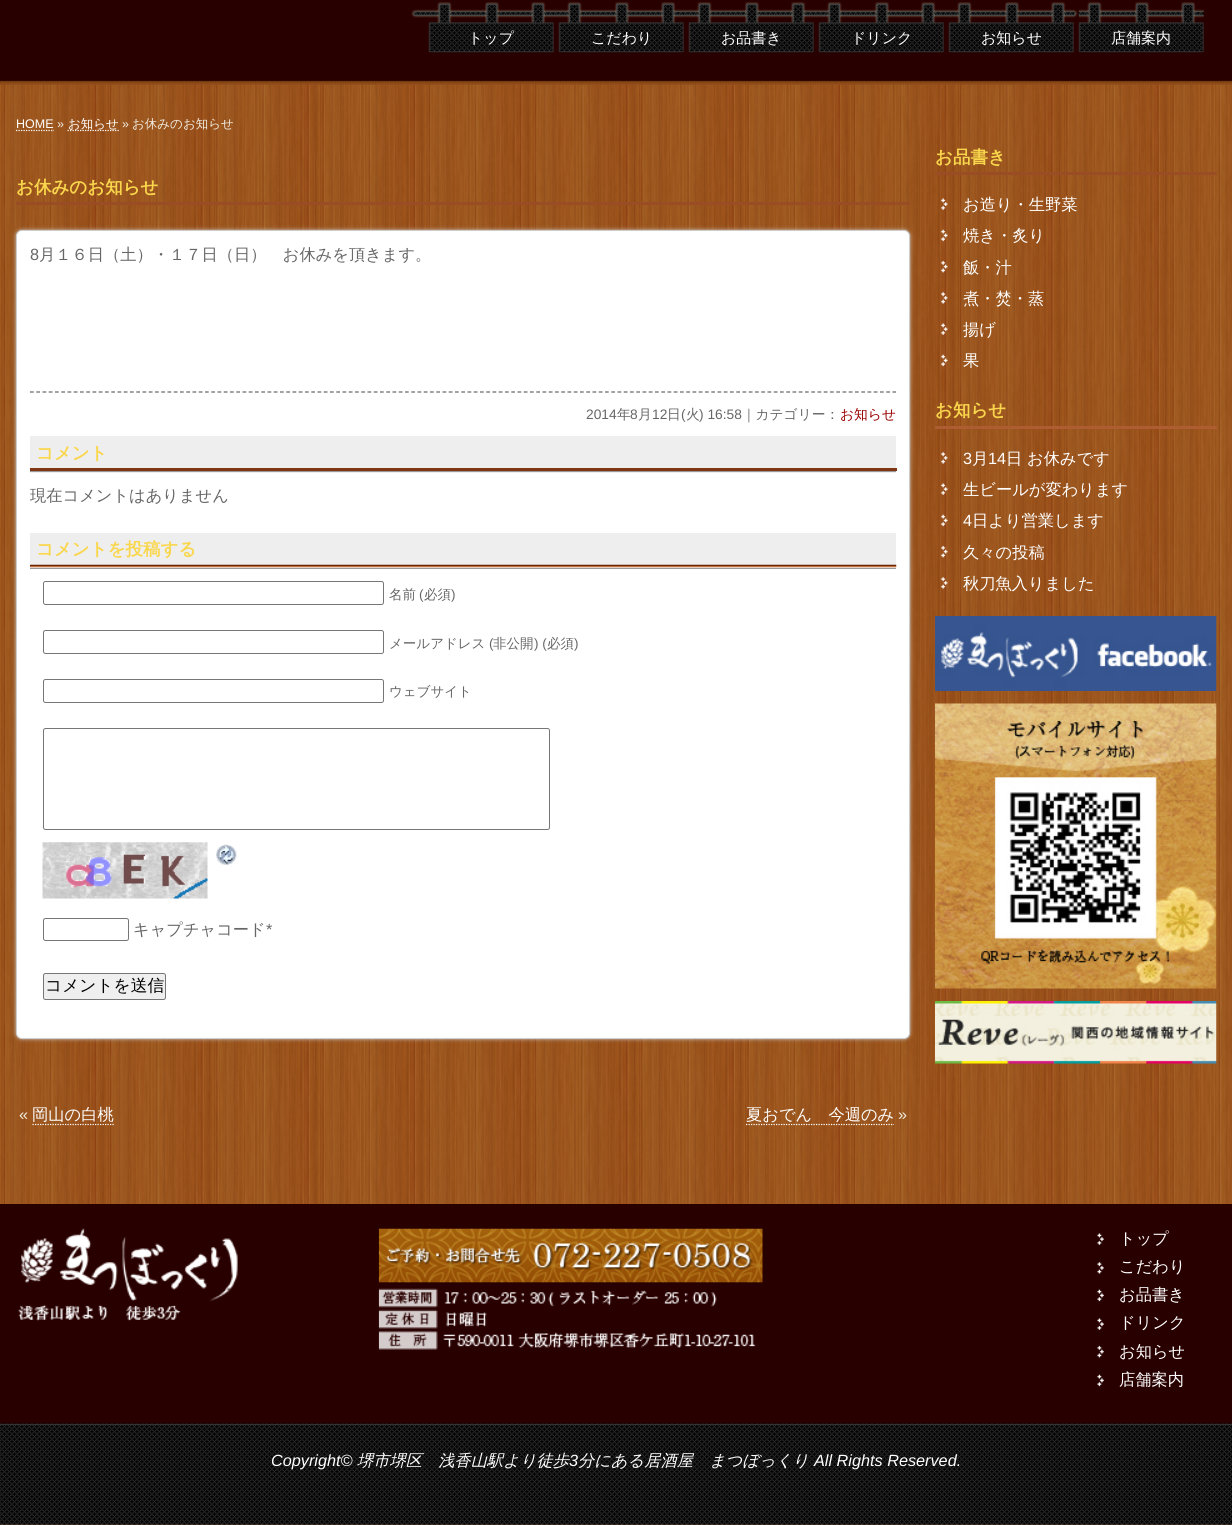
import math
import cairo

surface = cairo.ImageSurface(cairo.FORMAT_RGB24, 1232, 1525)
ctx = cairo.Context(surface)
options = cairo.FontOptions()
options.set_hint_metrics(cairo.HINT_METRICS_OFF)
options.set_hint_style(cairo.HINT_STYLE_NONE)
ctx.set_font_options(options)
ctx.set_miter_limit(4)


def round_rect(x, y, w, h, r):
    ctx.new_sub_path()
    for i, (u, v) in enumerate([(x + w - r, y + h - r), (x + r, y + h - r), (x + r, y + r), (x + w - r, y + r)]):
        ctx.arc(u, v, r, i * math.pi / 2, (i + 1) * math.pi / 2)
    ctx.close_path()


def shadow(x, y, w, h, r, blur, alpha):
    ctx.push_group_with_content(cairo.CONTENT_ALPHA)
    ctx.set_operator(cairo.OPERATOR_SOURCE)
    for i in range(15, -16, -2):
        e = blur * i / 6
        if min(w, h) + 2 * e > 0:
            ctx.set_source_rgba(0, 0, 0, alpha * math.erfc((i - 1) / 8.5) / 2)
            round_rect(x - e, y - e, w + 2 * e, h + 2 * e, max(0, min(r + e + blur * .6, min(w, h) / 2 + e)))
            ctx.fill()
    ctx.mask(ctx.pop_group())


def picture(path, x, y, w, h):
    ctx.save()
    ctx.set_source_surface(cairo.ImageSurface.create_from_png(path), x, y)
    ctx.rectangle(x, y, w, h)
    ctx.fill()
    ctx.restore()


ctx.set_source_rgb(1, 1, 1)
ctx.paint()
picture("img1.png", 0, 84, 1232, 1441)
picture("img2.png", 0, 0, 1232, 85)
picture("img3.png", 411, 9, 667, 9)
picture("img4.png", 428, 2, 126, 51)
ctx.select_font_face("WenQuanYi Zen Hei Medium")
ctx.set_font_size(15)
ctx.set_source_rgb(1, 1, 1)
ctx.move_to(468, 43)
ctx.show_text("トップ")
picture("img5.png", 558, 2, 126, 51)
ctx.move_to(591, 43)
ctx.show_text("こだわり")
picture("img6.png", 688, 2, 126, 51)
ctx.move_to(721, 43)
ctx.show_text("お品書き")
picture("img7.png", 818, 2, 126, 51)
ctx.move_to(851, 43)
ctx.show_text("ドリンク")
picture("img8.png", 948, 2, 126, 51)
ctx.move_to(981, 43)
ctx.show_text("お知らせ")
picture("img9.png", 1078, 2, 126, 51)
ctx.move_to(1111, 43)
ctx.show_text("店舗案内")
ctx.select_font_face("Liberation Sans")
ctx.set_font_size(12.5)
ctx.move_to(16, 128)
ctx.show_text("HOME")
ctx.new_path()
ctx.move_to(16, 130.5)
ctx.line_to(54, 130.5)
ctx.set_line_width(1.2)
ctx.set_dash([1.25, 1.25])
ctx.stroke()
ctx.set_source_rgb(0.941, 0.925, 0.878)
ctx.move_to(57, 128)
ctx.show_text("»")
ctx.new_path()
ctx.move_to(67.5, 130.5)
ctx.line_to(119, 130.5)
ctx.set_source_rgb(1, 1, 1)
ctx.stroke()
ctx.select_font_face("WenQuanYi Zen Hei Medium")
ctx.move_to(68, 128)
ctx.show_text("お知らせ")
ctx.select_font_face("Liberation Sans")
ctx.set_source_rgb(0.941, 0.925, 0.878)
ctx.move_to(122, 128)
ctx.show_text("»")
ctx.select_font_face("WenQuanYi Zen Hei Medium")
ctx.move_to(132, 128)
ctx.show_text("お休みのお知らせ")
ctx.set_source_rgb(0.604, 0.302, 0.141)
ctx.rectangle(16, 202, 894, 3)
ctx.fill()
ctx.select_font_face("WenQuanYi Zen Hei", cairo.FONT_SLANT_NORMAL, cairo.FONT_WEIGHT_BOLD)
ctx.set_font_size(17.5)
ctx.set_source_rgb(0.973, 0.839, 0.298)
ctx.move_to(16, 193)
ctx.show_text("お休みのお知らせ")
ctx.set_source_rgb(0.8, 0.8, 0.8)
shadow(16, 230, 894, 809, 6, 2, 1)
ctx.set_source_rgb(1, 1, 1)
round_rect(16.5, 230.5, 893, 808, 5.5)
ctx.fill_preserve()
ctx.set_source_rgb(0.8, 0.8, 0.8)
ctx.set_line_width(1)
ctx.set_dash([])
ctx.stroke()
ctx.new_path()
ctx.move_to(30, 392)
ctx.line_to(896, 392)
ctx.set_source_rgb(0.4, 0.4, 0.4)
ctx.set_line_width(1.2)
ctx.set_dash([3.75, 2.5])
ctx.stroke()
ctx.select_font_face("Liberation Sans")
ctx.set_font_size(16.25)
ctx.move_to(30, 260)
ctx.show_text("8")
ctx.select_font_face("WenQuanYi Zen Hei Medium")
ctx.move_to(39, 260)
ctx.show_text("月１６日（土）・１７日（日）　お休みを頂きます。")
ctx.select_font_face("Liberation Sans")
ctx.set_font_size(13.75)
ctx.move_to(586, 419)
ctx.show_text("2014")
ctx.select_font_face("WenQuanYi Zen Hei Medium")
ctx.move_to(617, 419)
ctx.show_text("年")
ctx.select_font_face("Liberation Sans")
ctx.move_to(630, 419)
ctx.show_text("8")
ctx.select_font_face("WenQuanYi Zen Hei Medium")
ctx.move_to(638, 419)
ctx.show_text("月")
ctx.select_font_face("Liberation Sans")
ctx.move_to(652, 419)
ctx.show_text("12")
ctx.select_font_face("WenQuanYi Zen Hei Medium")
ctx.move_to(667, 419)
ctx.show_text("日")
ctx.select_font_face("Liberation Sans")
ctx.move_to(681, 419)
ctx.show_text("(")
ctx.select_font_face("WenQuanYi Zen Hei Medium")
ctx.move_to(686, 419)
ctx.show_text("火")
ctx.select_font_face("Liberation Sans")
ctx.move_to(699, 419)
ctx.show_text(") 16:58")
ctx.select_font_face("WenQuanYi Zen Hei Medium")
ctx.move_to(742, 419)
ctx.show_text("｜カテゴリー：")
ctx.set_source_rgb(0.6, 0, 0)
ctx.move_to(840, 419)
ctx.show_text("お知らせ")
ctx.set_source_rgb(0.933, 0.933, 0.933)
ctx.rectangle(30, 436, 866, 37)
ctx.fill()
ctx.set_source_rgb(0.502, 0.212, 0.071)
ctx.rectangle(30, 468, 867, 3)
ctx.fill()
ctx.set_source_rgb(0.6, 0.6, 0.6)
ctx.rectangle(30, 471, 866, 1)
ctx.fill()
ctx.select_font_face("WenQuanYi Zen Hei", cairo.FONT_SLANT_NORMAL, cairo.FONT_WEIGHT_BOLD)
ctx.set_font_size(17.5)
ctx.set_source_rgb(0.973, 0.839, 0.298)
ctx.move_to(36, 459)
ctx.show_text("コメント")
ctx.select_font_face("WenQuanYi Zen Hei Medium")
ctx.set_font_size(16.25)
ctx.set_source_rgb(0.4, 0.4, 0.4)
ctx.move_to(30, 501)
ctx.show_text("現在コメントはありません")
ctx.set_source_rgb(0.933, 0.933, 0.933)
ctx.rectangle(30, 533, 866, 35)
ctx.fill()
picture("img10.png", 30, 564, 867, 4)
ctx.set_source_rgb(0.6, 0.6, 0.6)
ctx.rectangle(30, 568, 866, 1)
ctx.fill()
ctx.select_font_face("WenQuanYi Zen Hei", cairo.FONT_SLANT_NORMAL, cairo.FONT_WEIGHT_BOLD)
ctx.set_font_size(17.5)
ctx.set_source_rgb(0.973, 0.839, 0.298)
ctx.move_to(36, 555)
ctx.show_text("コメントを投稿する")
round_rect(43.5, 581.5, 340, 23, 2)
ctx.set_source_rgb(0.463, 0.463, 0.463)
ctx.set_line_width(1)
ctx.set_dash([])
ctx.stroke()
ctx.select_font_face("WenQuanYi Zen Hei Medium")
ctx.set_font_size(13.5)
ctx.set_source_rgb(0.4, 0.4, 0.4)
ctx.move_to(389, 599)
ctx.show_text("名前")
ctx.select_font_face("Liberation Sans")
ctx.move_to(419, 599)
ctx.show_text("(")
ctx.select_font_face("WenQuanYi Zen Hei Medium")
ctx.move_to(424, 599)
ctx.show_text("必須")
ctx.select_font_face("Liberation Sans")
ctx.move_to(451, 599)
ctx.show_text(")")
round_rect(43.5, 630.5, 340, 23, 2)
ctx.set_source_rgb(0.463, 0.463, 0.463)
ctx.stroke()
ctx.select_font_face("WenQuanYi Zen Hei Medium")
ctx.set_source_rgb(0.4, 0.4, 0.4)
ctx.move_to(389, 648)
ctx.show_text("メールアドレス")
ctx.select_font_face("Liberation Sans")
ctx.move_to(489, 648)
ctx.show_text("(")
ctx.select_font_face("WenQuanYi Zen Hei Medium")
ctx.move_to(493, 648)
ctx.show_text("非公開")
ctx.select_font_face("Liberation Sans")
ctx.move_to(534, 648)
ctx.show_text(") (")
ctx.select_font_face("WenQuanYi Zen Hei Medium")
ctx.move_to(547, 648)
ctx.show_text("必須")
ctx.select_font_face("Liberation Sans")
ctx.move_to(574, 648)
ctx.show_text(")")
round_rect(43.5, 679.5, 340, 23, 2)
ctx.set_source_rgb(0.463, 0.463, 0.463)
ctx.stroke()
ctx.select_font_face("WenQuanYi Zen Hei Medium")
ctx.set_source_rgb(0.4, 0.4, 0.4)
ctx.move_to(389, 696)
ctx.show_text("ウェブサイト")
round_rect(43.5, 728.5, 506, 101, 2)
ctx.set_source_rgb(0.463, 0.463, 0.463)
ctx.stroke()
picture("img11.png", 42, 842, 166, 57)
picture("img12.png", 216, 844, 21, 21)
round_rect(43.5, 918.5, 85, 22, 2)
ctx.stroke()
ctx.set_font_size(16.25)
ctx.set_source_rgb(0.4, 0.4, 0.4)
ctx.move_to(133, 935)
ctx.show_text("キャプチャコード")
ctx.select_font_face("Liberation Sans")
ctx.move_to(266, 935)
ctx.show_text("*")
ctx.set_source_rgb(0.937, 0.937, 0.937)
round_rect(43.5, 973.5, 122, 26, 2)
ctx.fill_preserve()
ctx.set_source_rgb(0.463, 0.463, 0.463)
ctx.stroke()
ctx.select_font_face("WenQuanYi Zen Hei Medium")
ctx.set_font_size(16.75)
ctx.set_source_rgb(0, 0, 0)
ctx.move_to(45, 991)
ctx.show_text("コメントを送信")
ctx.select_font_face("Liberation Sans")
ctx.set_font_size(16.25)
ctx.set_source_rgb(0.941, 0.925, 0.878)
ctx.move_to(19, 1120)
ctx.show_text("«")
ctx.select_font_face("WenQuanYi Zen Hei Medium")
ctx.set_source_rgb(1, 1, 1)
ctx.move_to(32, 1120)
ctx.show_text("岡山の白桃")
ctx.new_path()
ctx.move_to(32.5, 1124.5)
ctx.line_to(114, 1124.5)
ctx.set_line_width(1.2)
ctx.set_dash([1.25, 1.25])
ctx.stroke()
ctx.move_to(746, 1120)
ctx.show_text("夏おでん　今週のみ")
ctx.new_path()
ctx.move_to(746, 1124.5)
ctx.line_to(894, 1124.5)
ctx.stroke()
ctx.select_font_face("Liberation Sans")
ctx.set_source_rgb(0.941, 0.925, 0.878)
ctx.move_to(898, 1120)
ctx.show_text("»")
ctx.set_source_rgb(0.604, 0.302, 0.141)
ctx.rectangle(935, 172, 282, 3)
ctx.fill()
ctx.select_font_face("WenQuanYi Zen Hei", cairo.FONT_SLANT_NORMAL, cairo.FONT_WEIGHT_BOLD)
ctx.set_font_size(17.5)
ctx.set_source_rgb(0.973, 0.839, 0.298)
ctx.move_to(935, 163)
ctx.show_text("お品書き")
picture("img13.png", 941, 198, 7, 12)
ctx.select_font_face("WenQuanYi Zen Hei Medium")
ctx.set_font_size(16.25)
ctx.set_source_rgb(1, 1, 1)
ctx.move_to(963, 210)
ctx.show_text("お造り・生野菜")
picture("img14.png", 941, 229, 7, 13)
ctx.move_to(963, 241)
ctx.show_text("焼き・炙り")
picture("img15.png", 941, 260, 7, 13)
ctx.move_to(963, 273)
ctx.show_text("飯・汁")
picture("img16.png", 941, 292, 7, 12)
ctx.move_to(963, 304)
ctx.show_text("煮・焚・蒸")
picture("img17.png", 941, 323, 7, 12)
ctx.move_to(963, 335)
ctx.show_text("揚げ")
picture("img18.png", 941, 354, 7, 13)
ctx.move_to(963, 366)
ctx.show_text("果")
ctx.set_source_rgb(0.682, 0.365, 0.196)
ctx.rectangle(935, 426, 282, 3)
ctx.fill()
ctx.select_font_face("WenQuanYi Zen Hei", cairo.FONT_SLANT_NORMAL, cairo.FONT_WEIGHT_BOLD)
ctx.set_font_size(17.5)
ctx.set_source_rgb(0.973, 0.839, 0.298)
ctx.move_to(935, 416)
ctx.show_text("お知らせ")
picture("img19.png", 941, 452, 7, 12)
ctx.select_font_face("Liberation Sans")
ctx.set_font_size(16.25)
ctx.set_source_rgb(1, 1, 1)
ctx.move_to(963, 464)
ctx.show_text("3")
ctx.select_font_face("WenQuanYi Zen Hei Medium")
ctx.move_to(972, 464)
ctx.show_text("月")
ctx.select_font_face("Liberation Sans")
ctx.move_to(988, 464)
ctx.show_text("14")
ctx.select_font_face("WenQuanYi Zen Hei Medium")
ctx.move_to(1006, 464)
ctx.show_text("日 お休みです")
picture("img20.png", 941, 483, 7, 12)
ctx.move_to(963, 495)
ctx.show_text("生ビールが変わります")
picture("img21.png", 941, 514, 7, 13)
ctx.select_font_face("Liberation Sans")
ctx.move_to(963, 526)
ctx.show_text("4")
ctx.select_font_face("WenQuanYi Zen Hei Medium")
ctx.move_to(972, 526)
ctx.show_text("日より営業します")
picture("img22.png", 941, 545, 7, 13)
ctx.move_to(963, 558)
ctx.show_text("久々の投稿")
picture("img23.png", 941, 577, 7, 12)
ctx.move_to(963, 589)
ctx.show_text("秋刀魚入りました")
picture("img24.png", 935, 616, 282, 75)
picture("img25.png", 935, 703, 282, 286)
picture("img26.png", 935, 1001, 282, 63)
ctx.set_source_rgb(0.161, 0, 0)
ctx.rectangle(0, 1204, 1232, 220)
ctx.fill()
picture("img27.png", 18, 1228, 220, 93)
picture("img28.png", 378, 1228, 385, 122)
picture("img29.png", 1097, 1233, 7, 12)
ctx.set_source_rgb(1, 1, 1)
ctx.move_to(1119, 1244)
ctx.show_text("トップ")
picture("img30.png", 1097, 1262, 7, 12)
ctx.move_to(1119, 1272)
ctx.show_text("こだわり")
picture("img31.png", 1097, 1289, 7, 13)
ctx.move_to(1119, 1300)
ctx.show_text("お品書き")
picture("img29.png", 1097, 1318, 7, 12)
ctx.move_to(1119, 1328)
ctx.show_text("ドリンク")
picture("img32.png", 1097, 1345, 7, 13)
ctx.move_to(1119, 1357)
ctx.show_text("お知らせ")
picture("img31.png", 1097, 1374, 7, 13)
ctx.move_to(1119, 1385)
ctx.show_text("店舗案内")
picture("img33.png", 0, 1423, 1232, 102)
ctx.set_source_rgb(0.2, 0.2, 0.2)
ctx.rectangle(0, 1424, 1232, 1)
ctx.fill()
ctx.select_font_face("Liberation Sans", cairo.FONT_SLANT_ITALIC)
ctx.set_source_rgb(1, 1, 1)
ctx.move_to(271, 1466)
ctx.show_text("Copyright©")
ctx.select_font_face("WenQuanYi Zen Hei Medium", cairo.FONT_SLANT_ITALIC)
ctx.move_to(357, 1466)
ctx.show_text("堺市堺区　浅香山駅より徒歩")
ctx.select_font_face("Liberation Sans", cairo.FONT_SLANT_ITALIC)
ctx.move_to(569, 1466)
ctx.show_text("3")
ctx.select_font_face("WenQuanYi Zen Hei Medium", cairo.FONT_SLANT_ITALIC)
ctx.move_to(578, 1466)
ctx.show_text("分にある居酒屋　まつぼっくり")
ctx.select_font_face("Liberation Sans", cairo.FONT_SLANT_ITALIC)
ctx.move_to(814, 1466)
ctx.show_text("All Rights Reserved.")
surface.write_to_png("page.png")
